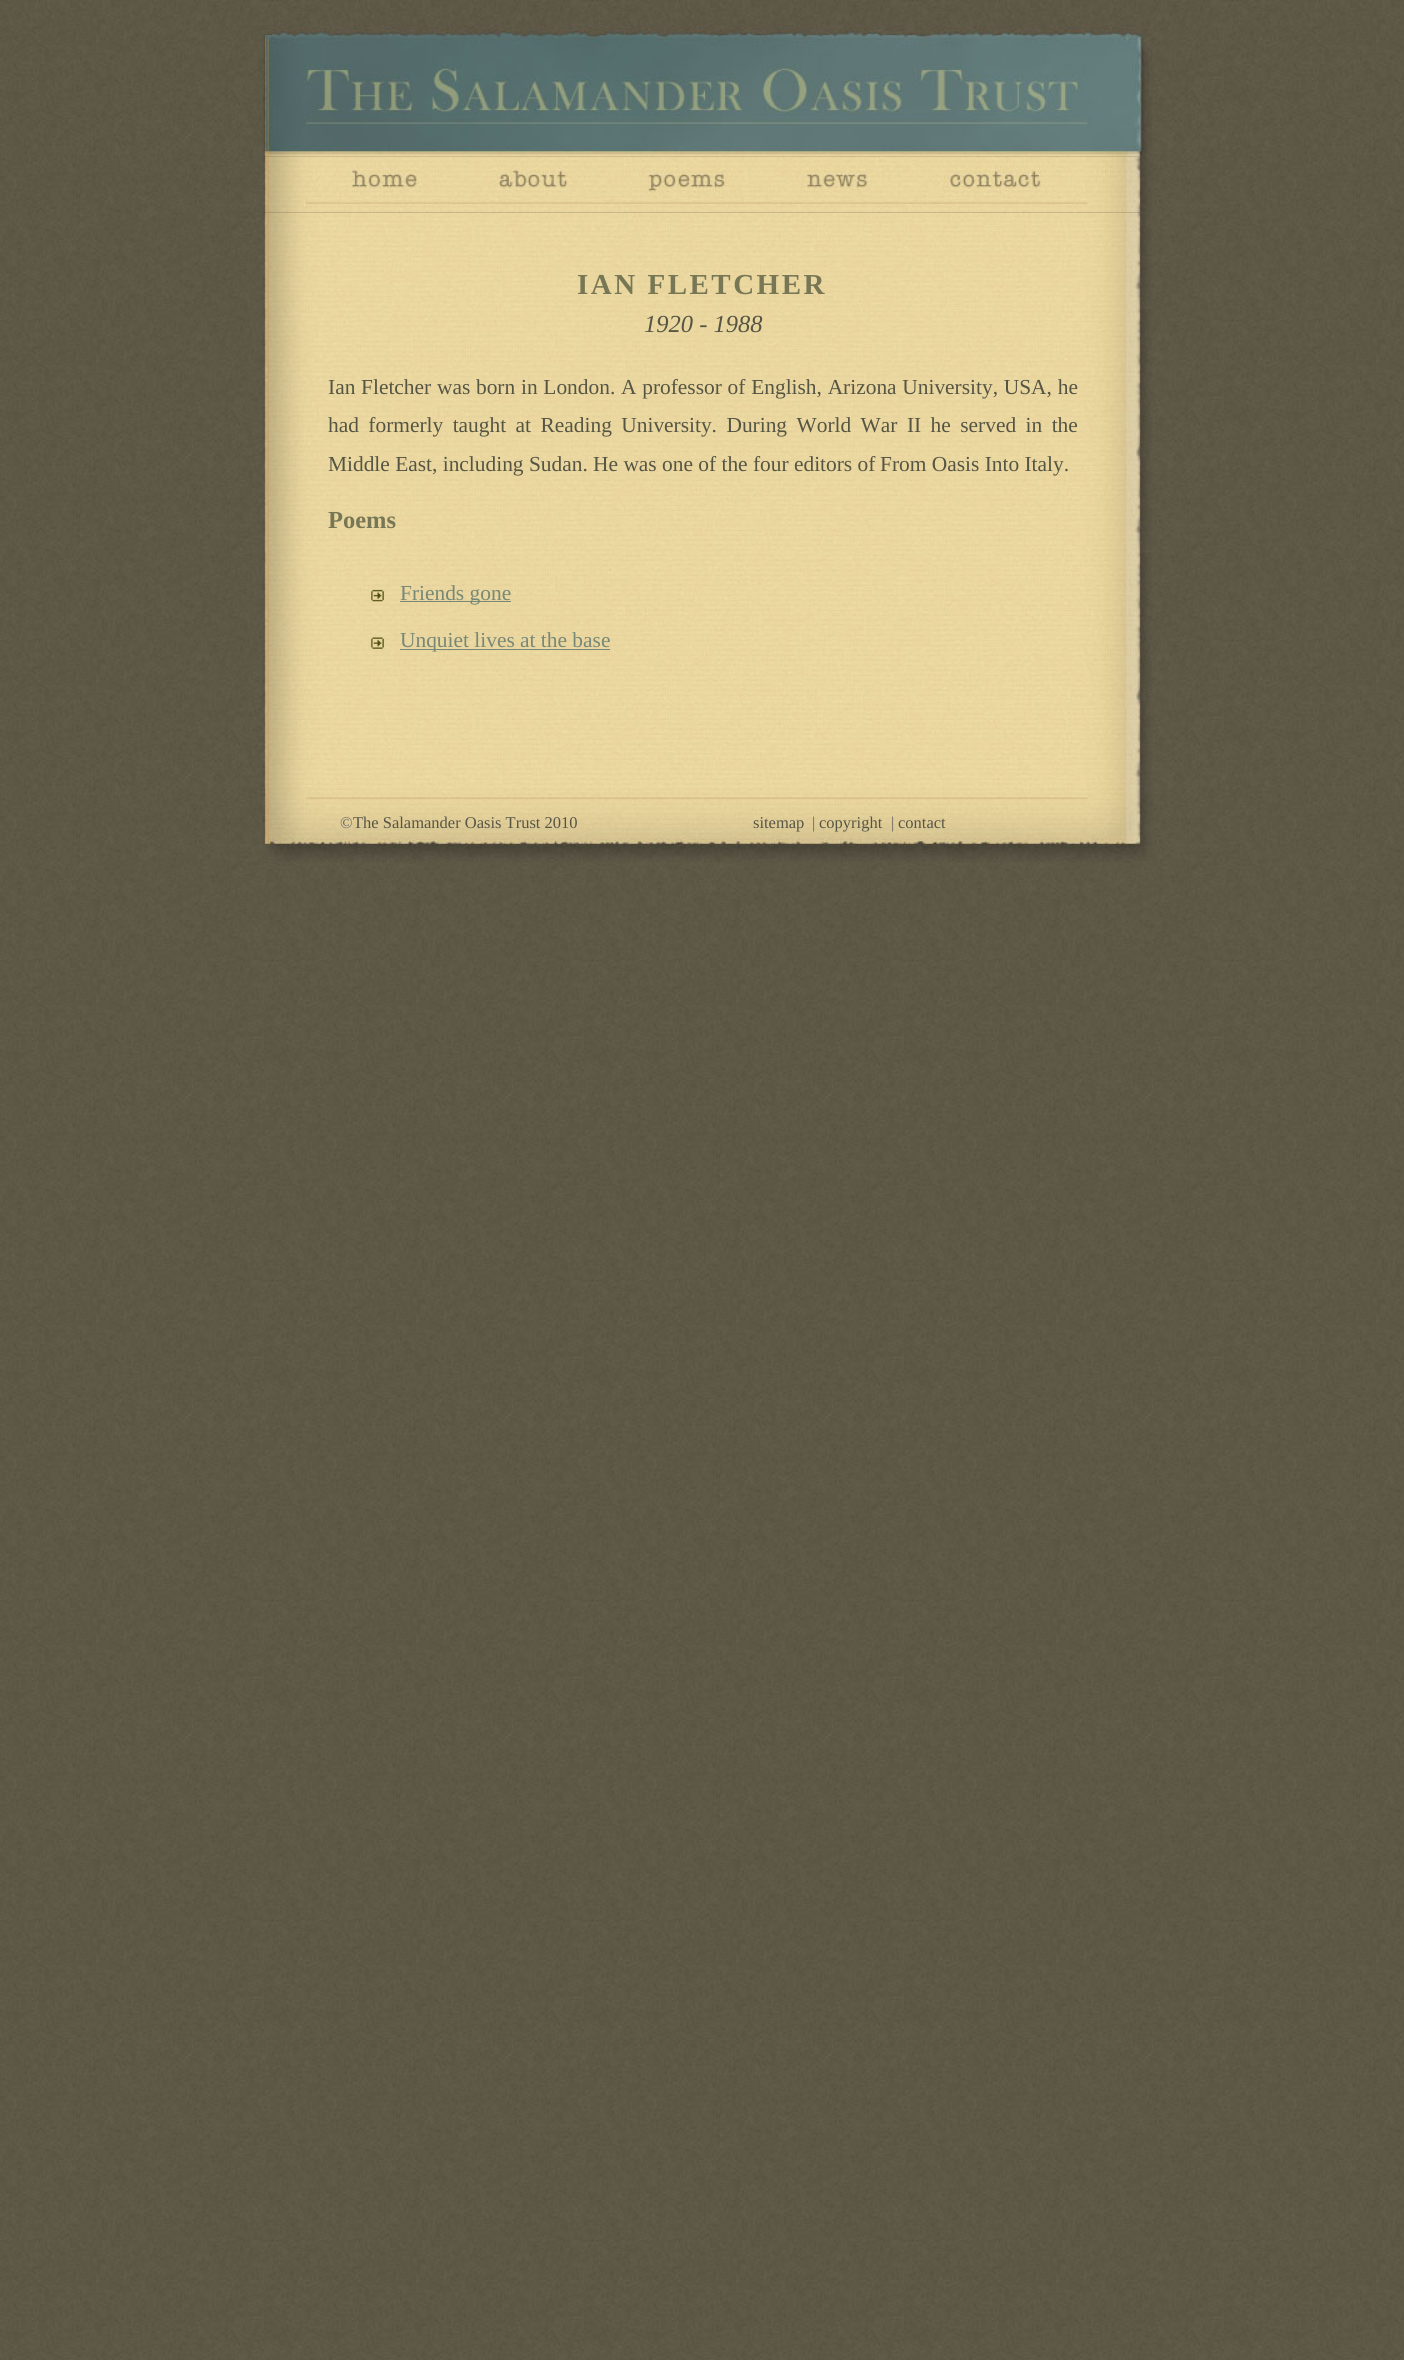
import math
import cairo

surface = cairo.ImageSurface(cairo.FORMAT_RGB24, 1404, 2360)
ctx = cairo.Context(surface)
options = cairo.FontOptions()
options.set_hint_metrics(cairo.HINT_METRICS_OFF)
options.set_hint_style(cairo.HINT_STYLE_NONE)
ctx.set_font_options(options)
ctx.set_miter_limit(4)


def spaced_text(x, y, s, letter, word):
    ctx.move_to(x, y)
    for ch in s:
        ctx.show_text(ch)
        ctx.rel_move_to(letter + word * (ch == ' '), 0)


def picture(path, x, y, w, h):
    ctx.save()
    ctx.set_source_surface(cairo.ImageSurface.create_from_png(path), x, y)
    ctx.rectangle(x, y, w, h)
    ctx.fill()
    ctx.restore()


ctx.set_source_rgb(1, 1, 1)
ctx.paint()
picture("img1.png", 0, 0, 1404, 2360)
picture("img2.png", 253, 25, 900, 132)
picture("img4.png", 252, 212, 901, 632)
picture("img3.png", 253, 156, 900, 57)
ctx.select_font_face("Liberation Serif", cairo.FONT_SLANT_NORMAL, cairo.FONT_WEIGHT_BOLD)
ctx.set_font_size(29)
ctx.set_source_rgb(0.467, 0.467, 0.333)
spaced_text(577, 294, "IAN FLETCHER", 2.5, 0)
ctx.select_font_face("Liberation Serif", cairo.FONT_SLANT_ITALIC)
ctx.set_font_size(24.5)
ctx.set_source_rgb(0.333, 0.333, 0.267)
ctx.move_to(644, 332)
ctx.show_text("1920 - 1988")
ctx.select_font_face("Liberation Serif")
ctx.set_font_size(21.4)
spaced_text(328, 394, "Ian Fletcher was born in London. A professor of English, Arizona University, USA, he", 0, 0.4)
spaced_text(328, 432, "had formerly taught at Reading University. During World War II he served in the", 0, 4.1)
ctx.move_to(328, 471)
ctx.show_text("Middle East, including Sudan. He was one of the four editors of")
ctx.move_to(880, 471)
ctx.show_text("From Oasis Into Italy.")
ctx.select_font_face("Liberation Serif", cairo.FONT_SLANT_NORMAL, cairo.FONT_WEIGHT_BOLD)
ctx.set_font_size(24.5)
ctx.set_source_rgb(0.467, 0.467, 0.333)
ctx.move_to(328, 528)
ctx.show_text("Poems")
picture("img5.png", 371, 589, 13, 13)
ctx.set_source_rgb(0.467, 0.533, 0.467)
ctx.rectangle(400, 601, 111, 1)
ctx.fill()
ctx.select_font_face("Liberation Serif")
ctx.set_font_size(21.4)
ctx.move_to(400, 600)
ctx.show_text("Friends gone")
picture("img6.png", 371, 637, 13, 12)
ctx.rectangle(400, 649, 210, 1)
ctx.fill()
ctx.move_to(400, 647)
ctx.show_text("Unquiet lives at the base")
picture("img7.png", 252, 787, 901, 76)
ctx.set_font_size(16.5)
ctx.set_source_rgb(0.4, 0.4, 0.4)
ctx.move_to(340, 828)
ctx.show_text("©")
ctx.set_source_rgb(0.333, 0.333, 0.267)
ctx.move_to(353, 828)
ctx.show_text("The Salamander Oasis Trust 2010")
ctx.move_to(753, 828)
ctx.show_text("sitemap")
ctx.set_source_rgb(0.4, 0.4, 0.4)
ctx.move_to(812, 828)
ctx.show_text("|")
ctx.set_source_rgb(0.333, 0.333, 0.267)
ctx.move_to(819, 828)
ctx.show_text("copyright")
ctx.set_source_rgb(0.4, 0.4, 0.4)
ctx.move_to(891, 828)
ctx.show_text("|")
ctx.set_source_rgb(0.333, 0.333, 0.267)
ctx.move_to(898, 828)
ctx.show_text("contact")
surface.write_to_png("page.png")
